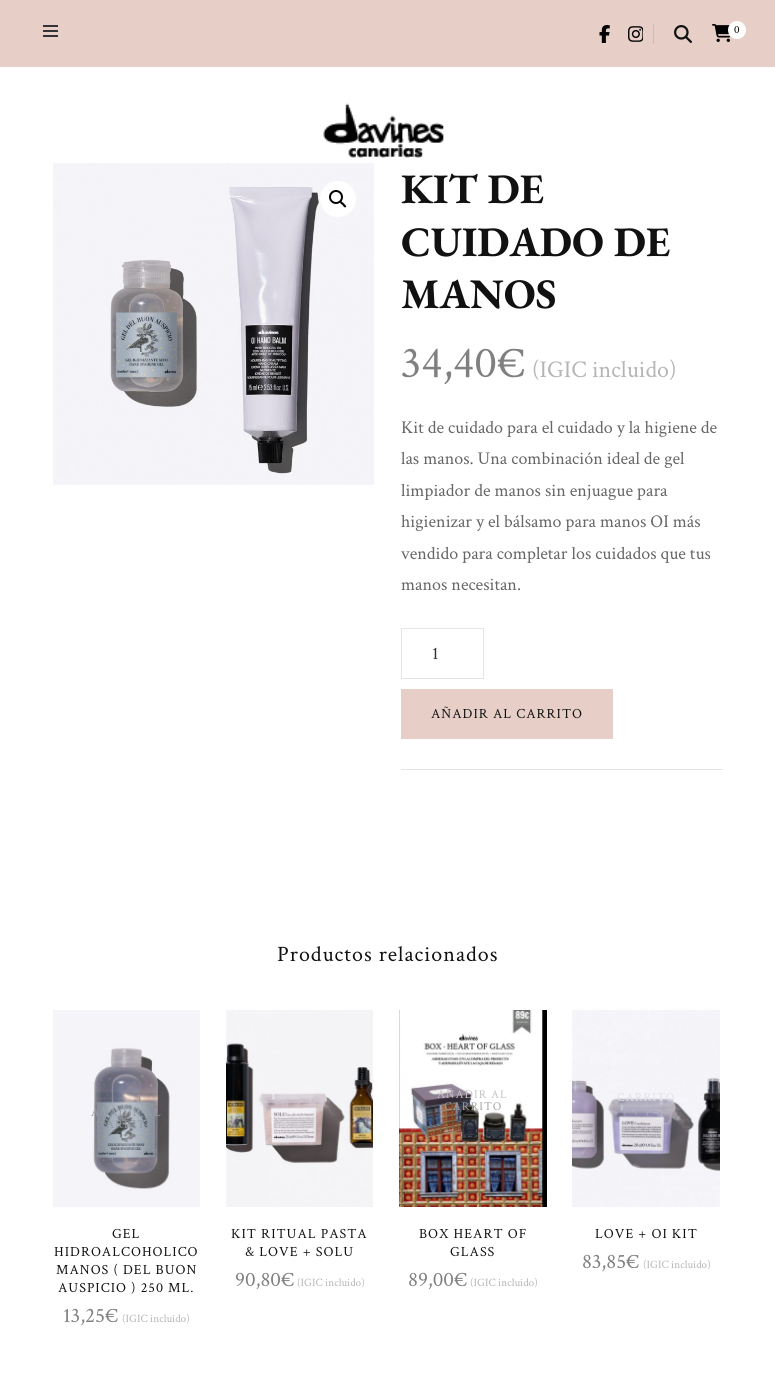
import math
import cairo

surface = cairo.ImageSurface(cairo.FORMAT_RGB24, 775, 1387)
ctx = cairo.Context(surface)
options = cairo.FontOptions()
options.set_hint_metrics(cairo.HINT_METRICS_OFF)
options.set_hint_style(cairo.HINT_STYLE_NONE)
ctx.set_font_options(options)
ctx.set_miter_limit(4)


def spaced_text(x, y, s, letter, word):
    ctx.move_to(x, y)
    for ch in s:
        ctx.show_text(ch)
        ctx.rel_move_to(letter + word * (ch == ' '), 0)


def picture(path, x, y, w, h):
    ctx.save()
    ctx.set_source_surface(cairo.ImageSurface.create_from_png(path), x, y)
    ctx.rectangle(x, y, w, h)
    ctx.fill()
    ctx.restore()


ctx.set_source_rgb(1, 1, 1)
ctx.paint()
ctx.set_source_rgb(0.906, 0.812, 0.784)
ctx.rectangle(0, 0, 775, 67)
ctx.fill()
ctx.set_source_rgb(0.196, 0.2, 0.22)
ctx.rectangle(43, 30, 15, 2)
ctx.fill()
ctx.rectangle(43, 25, 15, 2)
ctx.fill()
ctx.rectangle(43, 35, 15, 2)
ctx.fill()
picture("img1.png", 599, 25, 11, 18)
picture("img2.png", 628, 26, 15, 16)
ctx.set_source_rgb(0.816, 0.729, 0.706)
ctx.rectangle(653, 24, 1, 20)
ctx.fill()
picture("img3.png", 674, 25, 18, 18)
picture("img4.png", 712, 24, 18, 18)
ctx.set_source_rgb(1, 1, 1)
ctx.arc(737, 30, 9, 0, 2 * math.pi)
ctx.fill()
ctx.select_font_face("Crimson Text")
ctx.set_font_size(11)
ctx.set_source_rgb(0, 0, 0)
ctx.move_to(734, 33)
ctx.show_text("0")
picture("img5.png", 323, 103, 121, 55)
picture("img6.png", 53, 163, 321, 322)
ctx.set_source_rgb(1, 1, 1)
ctx.arc(338, 199, 18, 0, 2 * math.pi)
ctx.fill()
ctx.arc(336, 197, 6, 0, 2 * math.pi)
ctx.set_source_rgb(0, 0, 0)
ctx.stroke()
ctx.new_path()
ctx.move_to(340.5, 201.5)
ctx.curve_to(341.5, 200.5, 343, 203, 344, 203.5)
ctx.curve_to(344.5, 204.5, 347, 206, 346, 207)
ctx.curve_to(344.5, 208.5, 343, 205.5, 342.5, 205)
ctx.curve_to(342, 204.5, 339, 203, 340.5, 201.5)
ctx.close_path()
ctx.fill()
ctx.select_font_face("EB Garamond", cairo.FONT_SLANT_NORMAL, cairo.FONT_WEIGHT_BOLD)
ctx.set_font_size(42)
ctx.set_source_rgb(0.067, 0.067, 0.067)
ctx.move_to(401, 203)
ctx.show_text("KIT DE")
ctx.move_to(401, 256)
ctx.show_text("CUIDADO DE")
ctx.move_to(401, 308)
ctx.show_text("MANOS")
ctx.select_font_face("Crimson Text")
ctx.set_font_size(45)
ctx.set_source_rgb(0.502, 0.502, 0.502)
ctx.move_to(401, 377)
ctx.show_text("34,40€")
ctx.set_font_size(24)
ctx.set_source_rgb(0.71, 0.71, 0.71)
ctx.move_to(532, 377)
ctx.show_text("(IGIC incluido)")
ctx.set_font_size(18)
ctx.set_source_rgb(0.4, 0.4, 0.4)
ctx.move_to(401, 433)
ctx.show_text("Kit de cuidado para el cuidado y la higiene de")
ctx.move_to(401, 464)
ctx.show_text("las manos. Una combinación ideal de gel")
ctx.move_to(401, 496)
ctx.show_text("limpiador de manos sin enjuague para")
ctx.move_to(401, 527)
ctx.show_text("higienizar y el bálsamo para manos OI más")
ctx.move_to(401, 559)
ctx.show_text("vendido para completar los cuidados que tus")
ctx.move_to(401, 590)
ctx.show_text("manos necesitan.")
ctx.set_source_rgb(0.898, 0.898, 0.898)
ctx.rectangle(401, 769, 322, 1)
ctx.fill()
ctx.rectangle(401.5, 628.5, 82, 50)
ctx.set_line_width(1)
ctx.stroke()
ctx.set_source_rgb(0.2, 0.2, 0.2)
ctx.move_to(432, 659)
ctx.show_text("1")
ctx.set_source_rgb(0.906, 0.812, 0.784)
ctx.rectangle(401, 689, 212, 50)
ctx.fill()
ctx.set_font_size(14)
ctx.set_source_rgb(0.067, 0.067, 0.067)
spaced_text(431, 718, "AÑADIR AL CARRITO", 1, 0)
ctx.set_font_size(22)
spaced_text(277, 961, "Productos relacionados", 1, 0)
picture("img7.png", 53, 1010, 147, 197)
ctx.set_font_size(12)
ctx.set_source_rgb(0.584, 0.608, 0.647)
spaced_text(91, 1116, "AÑADIR AL", 1, 0)
ctx.set_source_rgb(0.561, 0.588, 0.624)
spaced_text(106, 1128, "ARRITO", 1, 0)
ctx.set_font_size(14)
ctx.set_source_rgb(0.067, 0.067, 0.067)
spaced_text(112, 1238, "GEL", 1, 0)
spaced_text(54, 1256, "HIDROALCOHOLICO", 1, 0)
spaced_text(56, 1274, "MANOS ( DEL BUON", 1, 0)
spaced_text(58, 1292, "AUSPICIO ) 250 ML.", 1, 0)
ctx.set_font_size(21)
ctx.set_source_rgb(0.502, 0.502, 0.502)
ctx.move_to(63, 1322)
ctx.show_text("13,25€")
ctx.set_font_size(11.25)
ctx.set_source_rgb(0.71, 0.71, 0.71)
ctx.move_to(122, 1322)
ctx.show_text("(IGIC incluido)")
picture("img8.png", 226, 1010, 147, 197)
ctx.set_font_size(14)
ctx.set_source_rgb(0.067, 0.067, 0.067)
spaced_text(231, 1238, "KIT RITUAL PASTA", 1, 0)
spaced_text(245, 1256, "& LOVE + SOLU", 1, 0)
ctx.set_font_size(21)
ctx.set_source_rgb(0.502, 0.502, 0.502)
ctx.move_to(235, 1286)
ctx.show_text("90,80€")
ctx.set_font_size(11.25)
ctx.set_source_rgb(0.71, 0.71, 0.71)
ctx.move_to(297, 1286)
ctx.show_text("(IGIC incluido)")
picture("img9.png", 399, 1010, 148, 197)
ctx.set_font_size(12)
ctx.set_source_rgb(0.78, 0.761, 0.788)
spaced_text(437, 1098, "AÑADIR AL", 1, 0)
ctx.set_source_rgb(0.655, 0.631, 0.627)
spaced_text(444, 1110, "CARRITO", 1, 0)
ctx.set_font_size(14)
ctx.set_source_rgb(0.067, 0.067, 0.067)
spaced_text(419, 1238, "BOX HEART OF", 1, 0)
spaced_text(450, 1256, "GLASS", 1, 0)
ctx.set_font_size(21)
ctx.set_source_rgb(0.502, 0.502, 0.502)
ctx.move_to(408, 1286)
ctx.show_text("89,00€")
ctx.set_font_size(11.25)
ctx.set_source_rgb(0.71, 0.71, 0.71)
ctx.move_to(470, 1286)
ctx.show_text("(IGIC incluido)")
picture("img10.png", 572, 1010, 148, 197)
ctx.set_font_size(12)
ctx.set_source_rgb(0.882, 0.878, 0.91)
spaced_text(617, 1101, "CARRITO", 1, 0)
ctx.set_font_size(14)
ctx.set_source_rgb(0.067, 0.067, 0.067)
spaced_text(595, 1238, "LOVE + OI KIT", 1, 0)
ctx.set_font_size(21)
ctx.set_source_rgb(0.502, 0.502, 0.502)
ctx.move_to(582, 1268)
ctx.show_text("83,85€")
ctx.set_font_size(11.25)
ctx.set_source_rgb(0.71, 0.71, 0.71)
ctx.move_to(643, 1268)
ctx.show_text("(IGIC incluido)")
surface.write_to_png("page.png")
